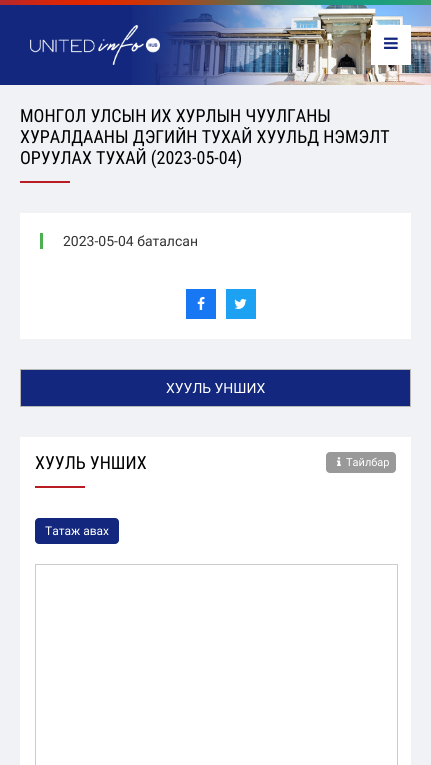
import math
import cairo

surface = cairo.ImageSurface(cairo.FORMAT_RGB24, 431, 765)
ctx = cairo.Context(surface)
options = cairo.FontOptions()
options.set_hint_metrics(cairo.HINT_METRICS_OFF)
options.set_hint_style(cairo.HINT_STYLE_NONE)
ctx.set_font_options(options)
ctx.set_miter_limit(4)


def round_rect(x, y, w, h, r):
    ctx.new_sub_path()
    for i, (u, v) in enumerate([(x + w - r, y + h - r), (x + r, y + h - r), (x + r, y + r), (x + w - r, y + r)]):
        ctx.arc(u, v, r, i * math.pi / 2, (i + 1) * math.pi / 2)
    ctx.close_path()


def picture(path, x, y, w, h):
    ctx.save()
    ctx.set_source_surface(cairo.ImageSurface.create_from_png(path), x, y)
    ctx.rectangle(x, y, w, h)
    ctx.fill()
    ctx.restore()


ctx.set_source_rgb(0.941, 0.949, 0.961)
ctx.paint()
picture("img1.png", 0, 0, 431, 5)
ctx.set_source_rgb(0.071, 0.153, 0.49)
ctx.rectangle(0, 5, 132, 80)
ctx.fill()
picture("img2.png", 132, 5, 299, 80)
picture("img3.png", 30, 25, 130, 40)
ctx.set_source_rgb(1, 1, 1)
ctx.rectangle(371, 25, 40, 40)
ctx.fill()
picture("img4.png", 384, 37, 14, 12)
ctx.select_font_face("Roboto Condensed")
ctx.set_font_size(18)
ctx.set_source_rgb(0, 0, 0)
ctx.move_to(20, 122)
ctx.show_text("МОНГОЛ УЛСЫН ИХ ХУРЛЫН ЧУУЛГАНЫ")
ctx.move_to(20, 143)
ctx.show_text("ХУРАЛДААНЫ ДЭГИЙН ТУХАЙ ХУУЛЬД НЭМЭЛТ")
ctx.move_to(20, 164)
ctx.show_text("ОРУУЛАХ ТУХАЙ (2023-05-04)")
ctx.set_source_rgb(0.729, 0.11, 0.141)
ctx.rectangle(20, 181, 50, 2)
ctx.fill()
ctx.set_source_rgb(1, 1, 1)
ctx.rectangle(20, 213, 391, 126)
ctx.fill()
ctx.set_source_rgb(0.298, 0.686, 0.314)
ctx.rectangle(40, 233, 3, 16)
ctx.fill()
ctx.select_font_face("Roboto")
ctx.set_font_size(14)
ctx.set_source_rgb(0.2, 0.2, 0.2)
ctx.move_to(63, 246)
ctx.show_text("2023-05-04 баталсан")
ctx.set_source_rgb(0.094, 0.467, 0.949)
ctx.rectangle(186, 289, 30, 30)
ctx.fill()
picture("img5.png", 197, 297, 8, 13)
ctx.set_source_rgb(0.114, 0.631, 0.949)
ctx.rectangle(226, 289, 30, 30)
ctx.fill()
picture("img6.png", 234, 299, 13, 10)
ctx.rectangle(20.5, 369.5, 390, 37)
ctx.set_source_rgb(0.722, 0.722, 0.722)
ctx.set_line_width(1)
ctx.stroke()
ctx.set_source_rgb(0.071, 0.153, 0.49)
ctx.rectangle(21, 370, 389, 36)
ctx.fill()
ctx.set_source_rgb(1, 1, 1)
ctx.move_to(166, 393)
ctx.show_text("ХУУЛЬ УНШИХ")
ctx.rectangle(20, 437, 391, 328)
ctx.fill()
ctx.select_font_face("Roboto Condensed")
ctx.set_font_size(18)
ctx.set_source_rgb(0, 0, 0)
ctx.move_to(35, 469)
ctx.show_text("ХУУЛЬ УНШИХ")
ctx.set_source_rgb(0.729, 0.11, 0.141)
ctx.rectangle(35, 486, 50, 2)
ctx.fill()
ctx.set_source_rgb(0.6, 0.6, 0.6)
round_rect(326, 452, 70, 21, 4)
ctx.fill()
picture("img7.png", 337, 457, 4, 9)
ctx.select_font_face("Roboto")
ctx.set_font_size(11)
ctx.set_source_rgb(1, 1, 1)
ctx.move_to(346, 466)
ctx.show_text("Тайлбар")
ctx.set_source_rgb(0.071, 0.153, 0.49)
round_rect(35, 518, 84, 26, 4)
ctx.fill()
ctx.set_font_size(12)
ctx.set_source_rgb(1, 1, 1)
ctx.move_to(45, 535)
ctx.show_text("Татаж авах")
ctx.rectangle(35.5, 564.5, 362, 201)
ctx.set_source_rgb(0.8, 0.8, 0.8)
ctx.stroke()
surface.write_to_png("page.png")
